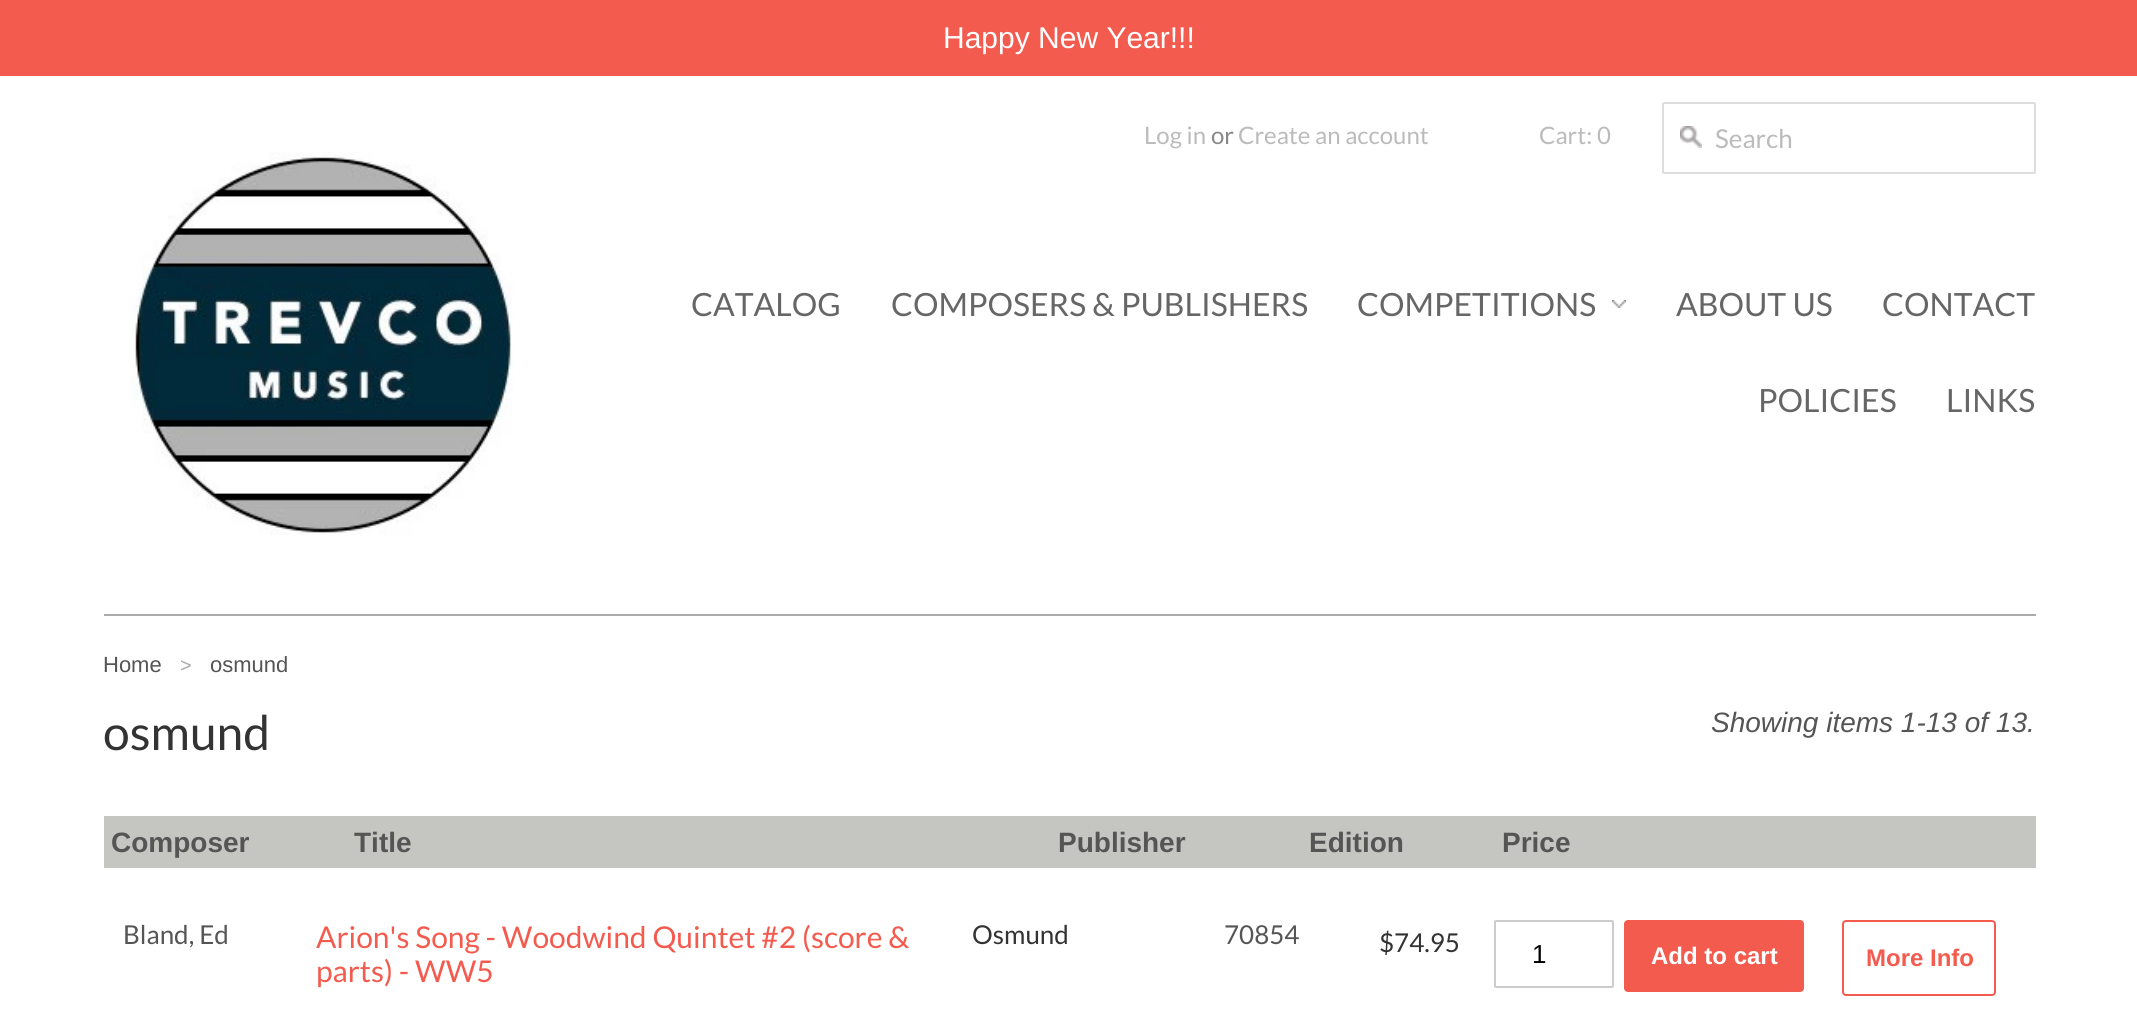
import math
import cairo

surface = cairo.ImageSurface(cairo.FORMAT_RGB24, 2137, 1012)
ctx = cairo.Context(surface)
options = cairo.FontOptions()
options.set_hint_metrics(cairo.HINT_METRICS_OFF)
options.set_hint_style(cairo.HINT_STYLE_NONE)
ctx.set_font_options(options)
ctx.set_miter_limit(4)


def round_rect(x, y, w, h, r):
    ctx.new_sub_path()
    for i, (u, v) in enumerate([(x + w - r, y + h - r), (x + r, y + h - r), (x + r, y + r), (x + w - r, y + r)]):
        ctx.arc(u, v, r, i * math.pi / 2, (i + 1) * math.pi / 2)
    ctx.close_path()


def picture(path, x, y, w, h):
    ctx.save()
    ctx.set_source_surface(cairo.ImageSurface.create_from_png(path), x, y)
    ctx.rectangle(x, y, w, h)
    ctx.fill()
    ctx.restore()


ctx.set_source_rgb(1, 1, 1)
ctx.paint()
ctx.set_source_rgb(0.957, 0.357, 0.31)
ctx.rectangle(0, 0, 2137, 76)
ctx.fill()
ctx.select_font_face("Liberation Sans")
ctx.set_font_size(30)
ctx.set_source_rgb(1, 1, 1)
ctx.move_to(943, 48)
ctx.show_text("Happy New Year!!!")
ctx.select_font_face("Lato")
ctx.set_font_size(24)
ctx.set_source_rgb(0.733, 0.733, 0.733)
ctx.move_to(1144, 144)
ctx.show_text("Log in")
ctx.set_source_rgb(0.533, 0.533, 0.533)
ctx.move_to(1211, 144)
ctx.show_text("or")
ctx.set_source_rgb(0.733, 0.733, 0.733)
ctx.move_to(1238, 144)
ctx.show_text("Create an account")
ctx.move_to(1539, 144)
ctx.show_text("Cart: 0")
round_rect(1663, 103, 372, 70, 1)
ctx.set_source_rgb(0.867, 0.867, 0.867)
ctx.stroke()
picture("img1.png", 1680, 126, 22, 22)
ctx.set_font_size(26)
ctx.set_source_rgb(0.733, 0.733, 0.733)
ctx.move_to(1715, 148)
ctx.show_text("Search")
ctx.set_source_rgb(0.667, 0.667, 0.667)
ctx.rectangle(104, 614, 1932, 2)
ctx.fill()
picture("img2.png", 131, 152, 382, 383)
ctx.set_font_size(32)
ctx.set_source_rgb(0.4, 0.4, 0.4)
ctx.move_to(691, 316)
ctx.show_text("CATALOG")
ctx.move_to(891, 316)
ctx.show_text("COMPOSERS & PUBLISHERS")
picture("img3.png", 1612, 300, 14, 8)
ctx.move_to(1357, 316)
ctx.show_text("COMPETITIONS")
ctx.move_to(1676, 316)
ctx.show_text("ABOUT US")
ctx.move_to(1882, 316)
ctx.show_text("CONTACT")
ctx.move_to(1758, 412)
ctx.show_text("POLICIES")
ctx.move_to(1946, 412)
ctx.show_text("LINKS")
ctx.select_font_face("Liberation Sans")
ctx.set_font_size(22)
ctx.set_source_rgb(0.333, 0.333, 0.333)
ctx.move_to(103, 672)
ctx.show_text("Home")
ctx.set_font_size(20)
ctx.set_source_rgb(0.667, 0.667, 0.667)
ctx.move_to(180, 672)
ctx.show_text(">")
ctx.set_font_size(22)
ctx.set_source_rgb(0.333, 0.333, 0.333)
ctx.move_to(210, 672)
ctx.show_text("osmund")
ctx.select_font_face("Lato")
ctx.set_font_size(48)
ctx.set_source_rgb(0.2, 0.2, 0.2)
ctx.move_to(103, 750)
ctx.show_text("osmund")
ctx.select_font_face("Liberation Sans", cairo.FONT_SLANT_ITALIC)
ctx.set_font_size(28)
ctx.set_source_rgb(0.333, 0.333, 0.333)
ctx.move_to(1711, 732)
ctx.show_text("Showing items 1-13 of 13.")
ctx.set_source_rgb(0.773, 0.776, 0.757)
ctx.rectangle(104, 816, 1932, 52)
ctx.fill()
ctx.select_font_face("Liberation Sans", cairo.FONT_SLANT_NORMAL, cairo.FONT_WEIGHT_BOLD)
ctx.set_source_rgb(0.333, 0.333, 0.333)
ctx.move_to(111, 852)
ctx.show_text("Composer")
ctx.move_to(354, 852)
ctx.show_text("Title")
ctx.move_to(1058, 852)
ctx.show_text("Publisher")
ctx.move_to(1309, 852)
ctx.show_text("Edition")
ctx.move_to(1502, 852)
ctx.show_text("Price")
ctx.select_font_face("Lato")
ctx.set_font_size(26)
ctx.move_to(123, 944)
ctx.show_text("Bland, Ed")
ctx.set_font_size(30)
ctx.set_source_rgb(0.957, 0.357, 0.31)
ctx.move_to(316, 948)
ctx.show_text("Arion's Song - Woodwind Quintet #2 (score &")
ctx.move_to(316, 982)
ctx.show_text("parts) - WW5")
ctx.set_font_size(26)
ctx.set_source_rgb(0.2, 0.2, 0.2)
ctx.move_to(972, 944)
ctx.show_text("Osmund")
ctx.set_source_rgb(0.333, 0.333, 0.333)
ctx.move_to(1224, 944)
ctx.show_text("70854")
ctx.set_source_rgb(0.2, 0.2, 0.2)
ctx.move_to(1379, 952)
ctx.show_text("$74.95")
round_rect(1495, 921, 118, 66, 1)
ctx.set_source_rgb(0.8, 0.8, 0.8)
ctx.stroke()
ctx.select_font_face("Liberation Sans")
ctx.set_source_rgb(0, 0, 0)
ctx.move_to(1532, 963)
ctx.show_text("1")
ctx.set_source_rgb(0.957, 0.357, 0.31)
round_rect(1624, 920, 180, 72, 4)
ctx.fill()
ctx.select_font_face("Liberation Sans", cairo.FONT_SLANT_NORMAL, cairo.FONT_WEIGHT_BOLD)
ctx.set_font_size(24)
ctx.set_source_rgb(1, 1, 1)
ctx.move_to(1651, 964)
ctx.show_text("Add to cart")
round_rect(1843, 921, 152, 74, 3)
ctx.set_source_rgb(0.957, 0.357, 0.31)
ctx.stroke()
ctx.move_to(1866, 966)
ctx.show_text("More Info")
surface.write_to_png("page.png")
